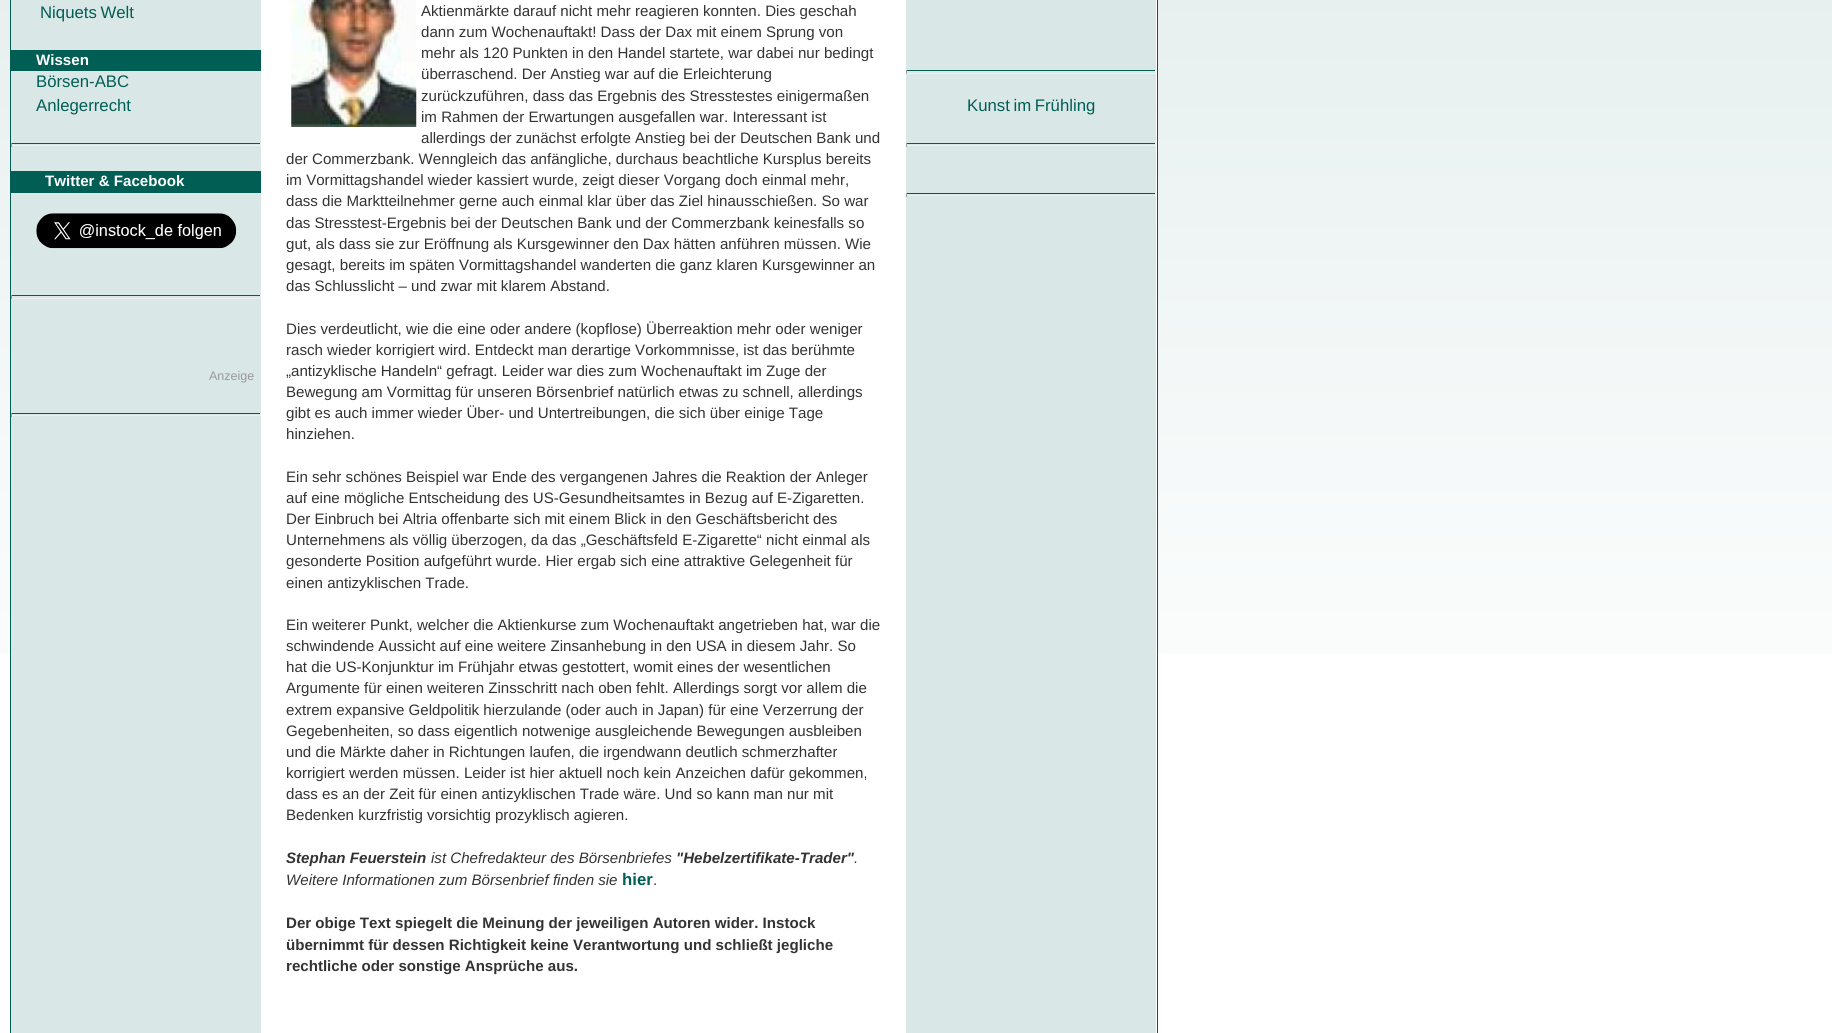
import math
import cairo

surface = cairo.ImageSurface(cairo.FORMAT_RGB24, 1832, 1033)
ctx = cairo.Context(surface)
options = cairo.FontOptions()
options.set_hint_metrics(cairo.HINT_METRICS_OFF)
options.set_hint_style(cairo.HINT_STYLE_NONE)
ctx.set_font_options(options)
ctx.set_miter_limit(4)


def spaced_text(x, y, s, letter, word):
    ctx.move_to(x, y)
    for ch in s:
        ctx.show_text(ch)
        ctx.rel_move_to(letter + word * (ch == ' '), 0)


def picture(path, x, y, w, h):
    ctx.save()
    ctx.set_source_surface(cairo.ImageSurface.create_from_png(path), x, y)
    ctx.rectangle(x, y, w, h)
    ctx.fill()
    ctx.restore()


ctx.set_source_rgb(1, 1, 1)
ctx.paint()
picture("img1.png", 0, 0, 1832, 654)
ctx.set_source_rgb(1, 1, 1)
ctx.rectangle(261, 0, 896, 654)
ctx.fill()
ctx.rectangle(10.5, -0.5, 1147, 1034)
ctx.set_source_rgb(0, 0.369, 0.329)
ctx.set_line_width(1)
ctx.stroke()
ctx.set_source_rgb(0.851, 0.906, 0.902)
ctx.rectangle(11, 0, 250, 1033)
ctx.fill()
ctx.select_font_face("Liberation Sans")
ctx.set_font_size(16.75)
ctx.set_source_rgb(0, 0.369, 0.329)
spaced_text(40, 18, "Niquets Welt", 0, -1)
ctx.rectangle(11, 50, 250, 21)
ctx.fill()
ctx.select_font_face("Liberation Sans", cairo.FONT_SLANT_NORMAL, cairo.FONT_WEIGHT_BOLD)
ctx.set_font_size(15.1)
ctx.set_source_rgb(1, 1, 1)
ctx.move_to(36, 65)
ctx.show_text("Wissen")
ctx.select_font_face("Liberation Sans")
ctx.set_font_size(16.75)
ctx.set_source_rgb(0, 0.369, 0.329)
ctx.move_to(36, 87)
ctx.show_text("Börsen-ABC")
ctx.move_to(36, 111)
ctx.show_text("Anlegerrecht")
ctx.rectangle(11, 143, 250, 1)
ctx.fill()
ctx.set_source_rgb(0.933, 0.933, 0.933)
ctx.rectangle(260, 143, 1, 4)
ctx.fill()
ctx.rectangle(11, 145, 250, 1)
ctx.fill()
ctx.set_source_rgb(0.624, 0.624, 0.624)
ctx.rectangle(11, 143, 1, 4)
ctx.fill()
ctx.set_source_rgb(0, 0.369, 0.329)
ctx.rectangle(11, 171, 250, 22)
ctx.fill()
ctx.select_font_face("Liberation Sans", cairo.FONT_SLANT_NORMAL, cairo.FONT_WEIGHT_BOLD)
ctx.set_font_size(15.1)
ctx.set_source_rgb(1, 1, 1)
ctx.move_to(45, 186)
ctx.show_text("Twitter & Facebook")
picture("img2.png", 36, 213, 201, 36)
ctx.set_source_rgb(0, 0.369, 0.329)
ctx.rectangle(11, 295, 250, 1)
ctx.fill()
ctx.set_source_rgb(0.933, 0.933, 0.933)
ctx.rectangle(260, 295, 1, 4)
ctx.fill()
ctx.rectangle(11, 298, 250, 1)
ctx.fill()
ctx.set_source_rgb(0.624, 0.624, 0.624)
ctx.rectangle(11, 295, 1, 4)
ctx.fill()
ctx.select_font_face("Liberation Sans")
ctx.set_font_size(12.5)
ctx.set_source_rgb(0.6, 0.6, 0.6)
ctx.move_to(209, 380)
ctx.show_text("Anzeige")
ctx.set_source_rgb(0, 0.369, 0.329)
ctx.rectangle(11, 413, 250, 1)
ctx.fill()
ctx.set_source_rgb(0.933, 0.933, 0.933)
ctx.rectangle(260, 413, 1, 4)
ctx.fill()
ctx.rectangle(11, 415, 250, 1)
ctx.fill()
ctx.set_source_rgb(0.624, 0.624, 0.624)
ctx.rectangle(11, 413, 1, 4)
ctx.fill()
ctx.set_source_rgb(0.851, 0.906, 0.902)
ctx.rectangle(906, 0, 250, 1033)
ctx.fill()
ctx.set_source_rgb(0, 0.369, 0.329)
ctx.rectangle(906, 70, 250, 1)
ctx.fill()
ctx.set_source_rgb(0.933, 0.933, 0.933)
ctx.rectangle(1155, 70, 1, 4)
ctx.fill()
ctx.rectangle(906, 73, 250, 1)
ctx.fill()
ctx.set_source_rgb(0.624, 0.624, 0.624)
ctx.rectangle(906, 70, 1, 4)
ctx.fill()
ctx.set_font_size(16.75)
ctx.set_source_rgb(0, 0.369, 0.329)
spaced_text(967, 111, "Kunst im Frühling", 0, -1)
ctx.rectangle(906, 143, 250, 1)
ctx.fill()
ctx.set_source_rgb(0.933, 0.933, 0.933)
ctx.rectangle(1155, 143, 1, 4)
ctx.fill()
ctx.rectangle(906, 145, 250, 1)
ctx.fill()
ctx.set_source_rgb(0.624, 0.624, 0.624)
ctx.rectangle(906, 143, 1, 4)
ctx.fill()
ctx.set_source_rgb(0, 0.369, 0.329)
ctx.rectangle(906, 193, 250, 1)
ctx.fill()
ctx.set_source_rgb(0.933, 0.933, 0.933)
ctx.rectangle(1155, 193, 1, 4)
ctx.fill()
ctx.rectangle(906, 195, 250, 1)
ctx.fill()
ctx.set_source_rgb(0.624, 0.624, 0.624)
ctx.rectangle(906, 193, 1, 4)
ctx.fill()
picture("img3.png", 291, 0, 126, 127)
ctx.set_font_size(15.1)
ctx.set_source_rgb(0.2, 0.2, 0.2)
ctx.move_to(421, 16)
ctx.show_text("Aktienmärkte darauf nicht mehr reagieren konnten. Dies geschah")
ctx.move_to(421, 37)
ctx.show_text("dann zum Wochenauftakt! Dass der Dax mit einem Sprung von")
ctx.move_to(421, 58)
ctx.show_text("mehr als 120 Punkten in den Handel startete, war dabei nur bedingt")
ctx.move_to(421, 79)
ctx.show_text("überraschend. Der Anstieg war auf die Erleichterung")
ctx.move_to(421, 101)
ctx.show_text("zurückzuführen, dass das Ergebnis des Stresstestes einigermaßen")
ctx.move_to(421, 122)
ctx.show_text("im Rahmen der Erwartungen ausgefallen war. Interessant ist")
ctx.move_to(421, 143)
ctx.show_text("allerdings der zunächst erfolgte Anstieg bei der Deutschen Bank und")
ctx.move_to(286, 164)
ctx.show_text("der Commerzbank. Wenngleich das anfängliche, durchaus beachtliche Kursplus bereits")
ctx.move_to(286, 185)
ctx.show_text("im Vormittagshandel wieder kassiert wurde, zeigt dieser Vorgang doch einmal mehr,")
ctx.move_to(286, 206)
ctx.show_text("dass die Marktteilnehmer gerne auch einmal klar über das Ziel hinausschießen. So war")
ctx.move_to(286, 228)
ctx.show_text("das Stresstest-Ergebnis bei der Deutschen Bank und der Commerzbank keinesfalls so")
ctx.move_to(286, 249)
ctx.show_text("gut, als dass sie zur Eröffnung als Kursgewinner den Dax hätten anführen müssen. Wie")
ctx.move_to(286, 270)
ctx.show_text("gesagt, bereits im späten Vormittagshandel wanderten die ganz klaren Kursgewinner an")
ctx.move_to(286, 291)
ctx.show_text("das Schlusslicht – und zwar mit klarem Abstand.")
ctx.move_to(286, 334)
ctx.show_text("Dies verdeutlicht, wie die eine oder andere (kopflose) Überreaktion mehr oder weniger")
ctx.move_to(286, 355)
ctx.show_text("rasch wieder korrigiert wird. Entdeckt man derartige Vorkommnisse, ist das berühmte")
ctx.move_to(286, 376)
ctx.show_text("„antizyklische Handeln“ gefragt. Leider war dies zum Wochenauftakt im Zuge der")
ctx.move_to(286, 397)
ctx.show_text("Bewegung am Vormittag für unseren Börsenbrief natürlich etwas zu schnell, allerdings")
ctx.move_to(286, 418)
ctx.show_text("gibt es auch immer wieder Über- und Untertreibungen, die sich über einige Tage")
ctx.move_to(286, 439)
ctx.show_text("hinziehen.")
ctx.move_to(286, 482)
ctx.show_text("Ein sehr schönes Beispiel war Ende des vergangenen Jahres die Reaktion der Anleger")
ctx.move_to(286, 503)
ctx.show_text("auf eine mögliche Entscheidung des US-Gesundheitsamtes in Bezug auf E-Zigaretten.")
ctx.move_to(286, 524)
ctx.show_text("Der Einbruch bei Altria offenbarte sich mit einem Blick in den Geschäftsbericht des")
ctx.move_to(286, 545)
ctx.show_text("Unternehmens als völlig überzogen, da das „Geschäftsfeld E-Zigarette“ nicht einmal als")
ctx.move_to(286, 566)
ctx.show_text("gesonderte Position aufgeführt wurde. Hier ergab sich eine attraktive Gelegenheit für")
ctx.move_to(286, 588)
ctx.show_text("einen antizyklischen Trade.")
ctx.move_to(286, 630)
ctx.show_text("Ein weiterer Punkt, welcher die Aktienkurse zum Wochenauftakt angetrieben hat, war die")
ctx.move_to(286, 651)
ctx.show_text("schwindende Aussicht auf eine weitere Zinsanhebung in den USA in diesem Jahr. So")
ctx.move_to(286, 672)
ctx.show_text("hat die US-Konjunktur im Frühjahr etwas gestottert, womit eines der wesentlichen")
ctx.move_to(286, 693)
ctx.show_text("Argumente für einen weiteren Zinsschritt nach oben fehlt. Allerdings sorgt vor allem die")
ctx.move_to(286, 715)
ctx.show_text("extrem expansive Geldpolitik hierzulande (oder auch in Japan) für eine Verzerrung der")
ctx.move_to(286, 736)
ctx.show_text("Gegebenheiten, so dass eigentlich notwenige ausgleichende Bewegungen ausbleiben")
ctx.move_to(286, 757)
ctx.show_text("und die Märkte daher in Richtungen laufen, die irgendwann deutlich schmerzhafter")
ctx.move_to(286, 778)
ctx.show_text("korrigiert werden müssen. Leider ist hier aktuell noch kein Anzeichen dafür gekommen,")
ctx.move_to(286, 799)
ctx.show_text("dass es an der Zeit für einen antizyklischen Trade wäre. Und so kann man nur mit")
ctx.move_to(286, 820)
ctx.show_text("Bedenken kurzfristig vorsichtig prozyklisch agieren.")
ctx.select_font_face("Liberation Sans", cairo.FONT_SLANT_ITALIC, cairo.FONT_WEIGHT_BOLD)
ctx.move_to(286, 863)
ctx.show_text("Stephan Feuerstein")
ctx.select_font_face("Liberation Sans", cairo.FONT_SLANT_ITALIC)
ctx.move_to(431, 863)
ctx.show_text("ist Chefredakteur des Börsenbriefes")
ctx.select_font_face("Liberation Sans", cairo.FONT_SLANT_ITALIC, cairo.FONT_WEIGHT_BOLD)
ctx.move_to(676, 863)
ctx.show_text("\"Hebelzertifikate-Trader\"")
ctx.select_font_face("Liberation Sans", cairo.FONT_SLANT_ITALIC)
ctx.move_to(854, 863)
ctx.show_text(".")
ctx.move_to(286, 885)
ctx.show_text("Weitere Informationen zum Börsenbrief finden sie")
ctx.select_font_face("Liberation Sans", cairo.FONT_SLANT_NORMAL, cairo.FONT_WEIGHT_BOLD)
ctx.set_font_size(16.75)
ctx.set_source_rgb(0, 0.369, 0.329)
ctx.move_to(622, 885)
ctx.show_text("hier")
ctx.select_font_face("Liberation Sans")
ctx.set_font_size(15.1)
ctx.set_source_rgb(0.2, 0.2, 0.2)
ctx.move_to(653, 885)
ctx.show_text(".")
ctx.select_font_face("Liberation Sans", cairo.FONT_SLANT_NORMAL, cairo.FONT_WEIGHT_BOLD)
ctx.move_to(286, 928)
ctx.show_text("Der obige Text spiegelt die Meinung der jeweiligen Autoren wider. Instock")
ctx.move_to(286, 950)
ctx.show_text("übernimmt für dessen Richtigkeit keine Verantwortung und schließt jegliche")
ctx.move_to(286, 971)
ctx.show_text("rechtliche oder sonstige Ansprüche aus.")
surface.write_to_png("page.png")
